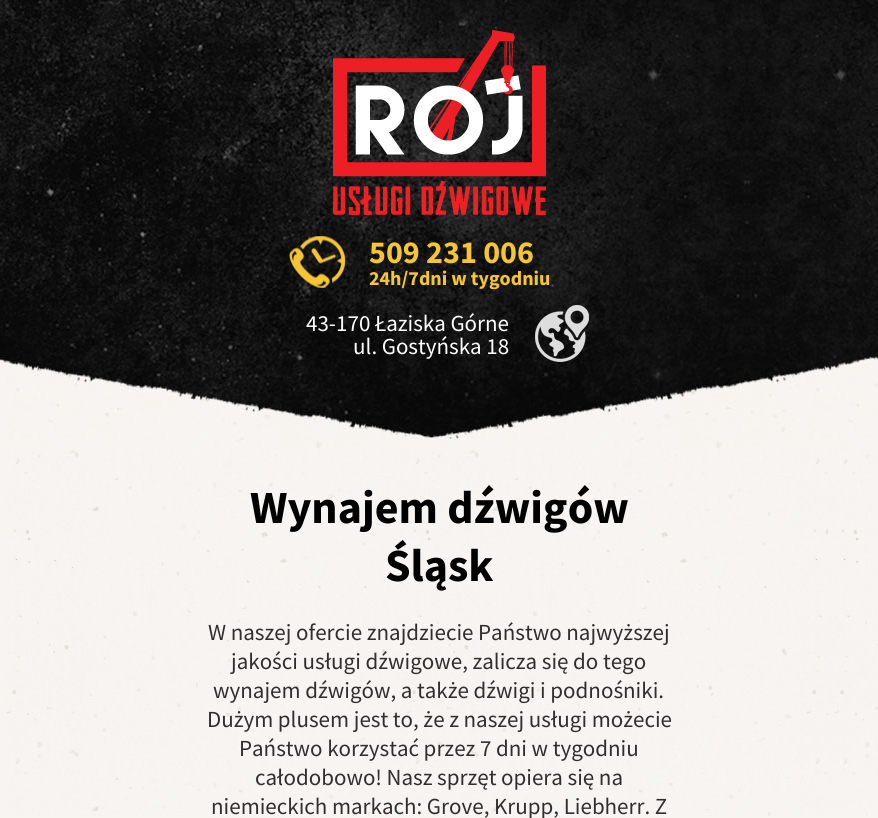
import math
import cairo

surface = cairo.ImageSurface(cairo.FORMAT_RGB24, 878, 818)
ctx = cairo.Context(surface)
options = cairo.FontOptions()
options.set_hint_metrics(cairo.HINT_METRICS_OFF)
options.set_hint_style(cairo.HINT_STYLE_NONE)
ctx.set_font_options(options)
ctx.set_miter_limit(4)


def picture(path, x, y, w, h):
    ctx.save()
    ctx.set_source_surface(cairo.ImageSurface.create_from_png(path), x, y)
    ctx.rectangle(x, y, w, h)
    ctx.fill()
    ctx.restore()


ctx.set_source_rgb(0.969, 0.957, 0.941)
ctx.paint()
picture("img1.png", 6, 448, 872, 368)
picture("img2.png", 0, 0, 878, 448)
picture("img3.png", 333, 30, 213, 185)
picture("img4.png", 289, 236, 56, 52)
ctx.select_font_face("Source Sans Pro", cairo.FONT_SLANT_NORMAL, cairo.FONT_WEIGHT_BOLD)
ctx.set_font_size(32)
ctx.set_source_rgb(0.961, 0.773, 0.2)
ctx.move_to(369, 263)
ctx.show_text("509 231 006")
ctx.set_font_size(20)
ctx.move_to(369, 285)
ctx.show_text("24h/7dni w tygodniu")
picture("img5.png", 535, 305, 54, 57)
ctx.select_font_face("Source Sans Pro")
ctx.set_font_size(23)
ctx.set_source_rgb(1, 1, 1)
ctx.move_to(306, 331)
ctx.show_text("43-170 Łaziska Górne")
ctx.move_to(353, 354)
ctx.show_text("ul. Gostyńska 18")
ctx.select_font_face("Source Sans Pro", cairo.FONT_SLANT_NORMAL, cairo.FONT_WEIGHT_BOLD)
ctx.set_font_size(46)
ctx.set_source_rgb(0, 0, 0)
ctx.move_to(250, 523)
ctx.show_text("Wynajem dźwigów")
ctx.move_to(385, 581)
ctx.show_text("Śląsk")
ctx.select_font_face("Source Sans Pro")
ctx.set_font_size(23)
ctx.set_source_rgb(0.2, 0.18, 0.18)
ctx.move_to(208, 640)
ctx.show_text("W naszej ofercie znajdziecie Państwo najwyższej")
ctx.move_to(231, 669)
ctx.show_text("jakości usługi dźwigowe, zalicza się do tego")
ctx.move_to(213, 698)
ctx.show_text("wynajem dźwigów, a także dźwigi i podnośniki.")
ctx.move_to(207, 727)
ctx.show_text("Dużym plusem jest to, że z naszej usługi możecie")
ctx.move_to(239, 756)
ctx.show_text("Państwo korzystać przez 7 dni w tygodniu")
ctx.move_to(255, 785)
ctx.show_text("całodobowo! Nasz sprzęt opiera się na")
ctx.move_to(211, 814)
ctx.show_text("niemieckich markach: Grove, Krupp, Liebherr. Z")
surface.write_to_png("page.png")
